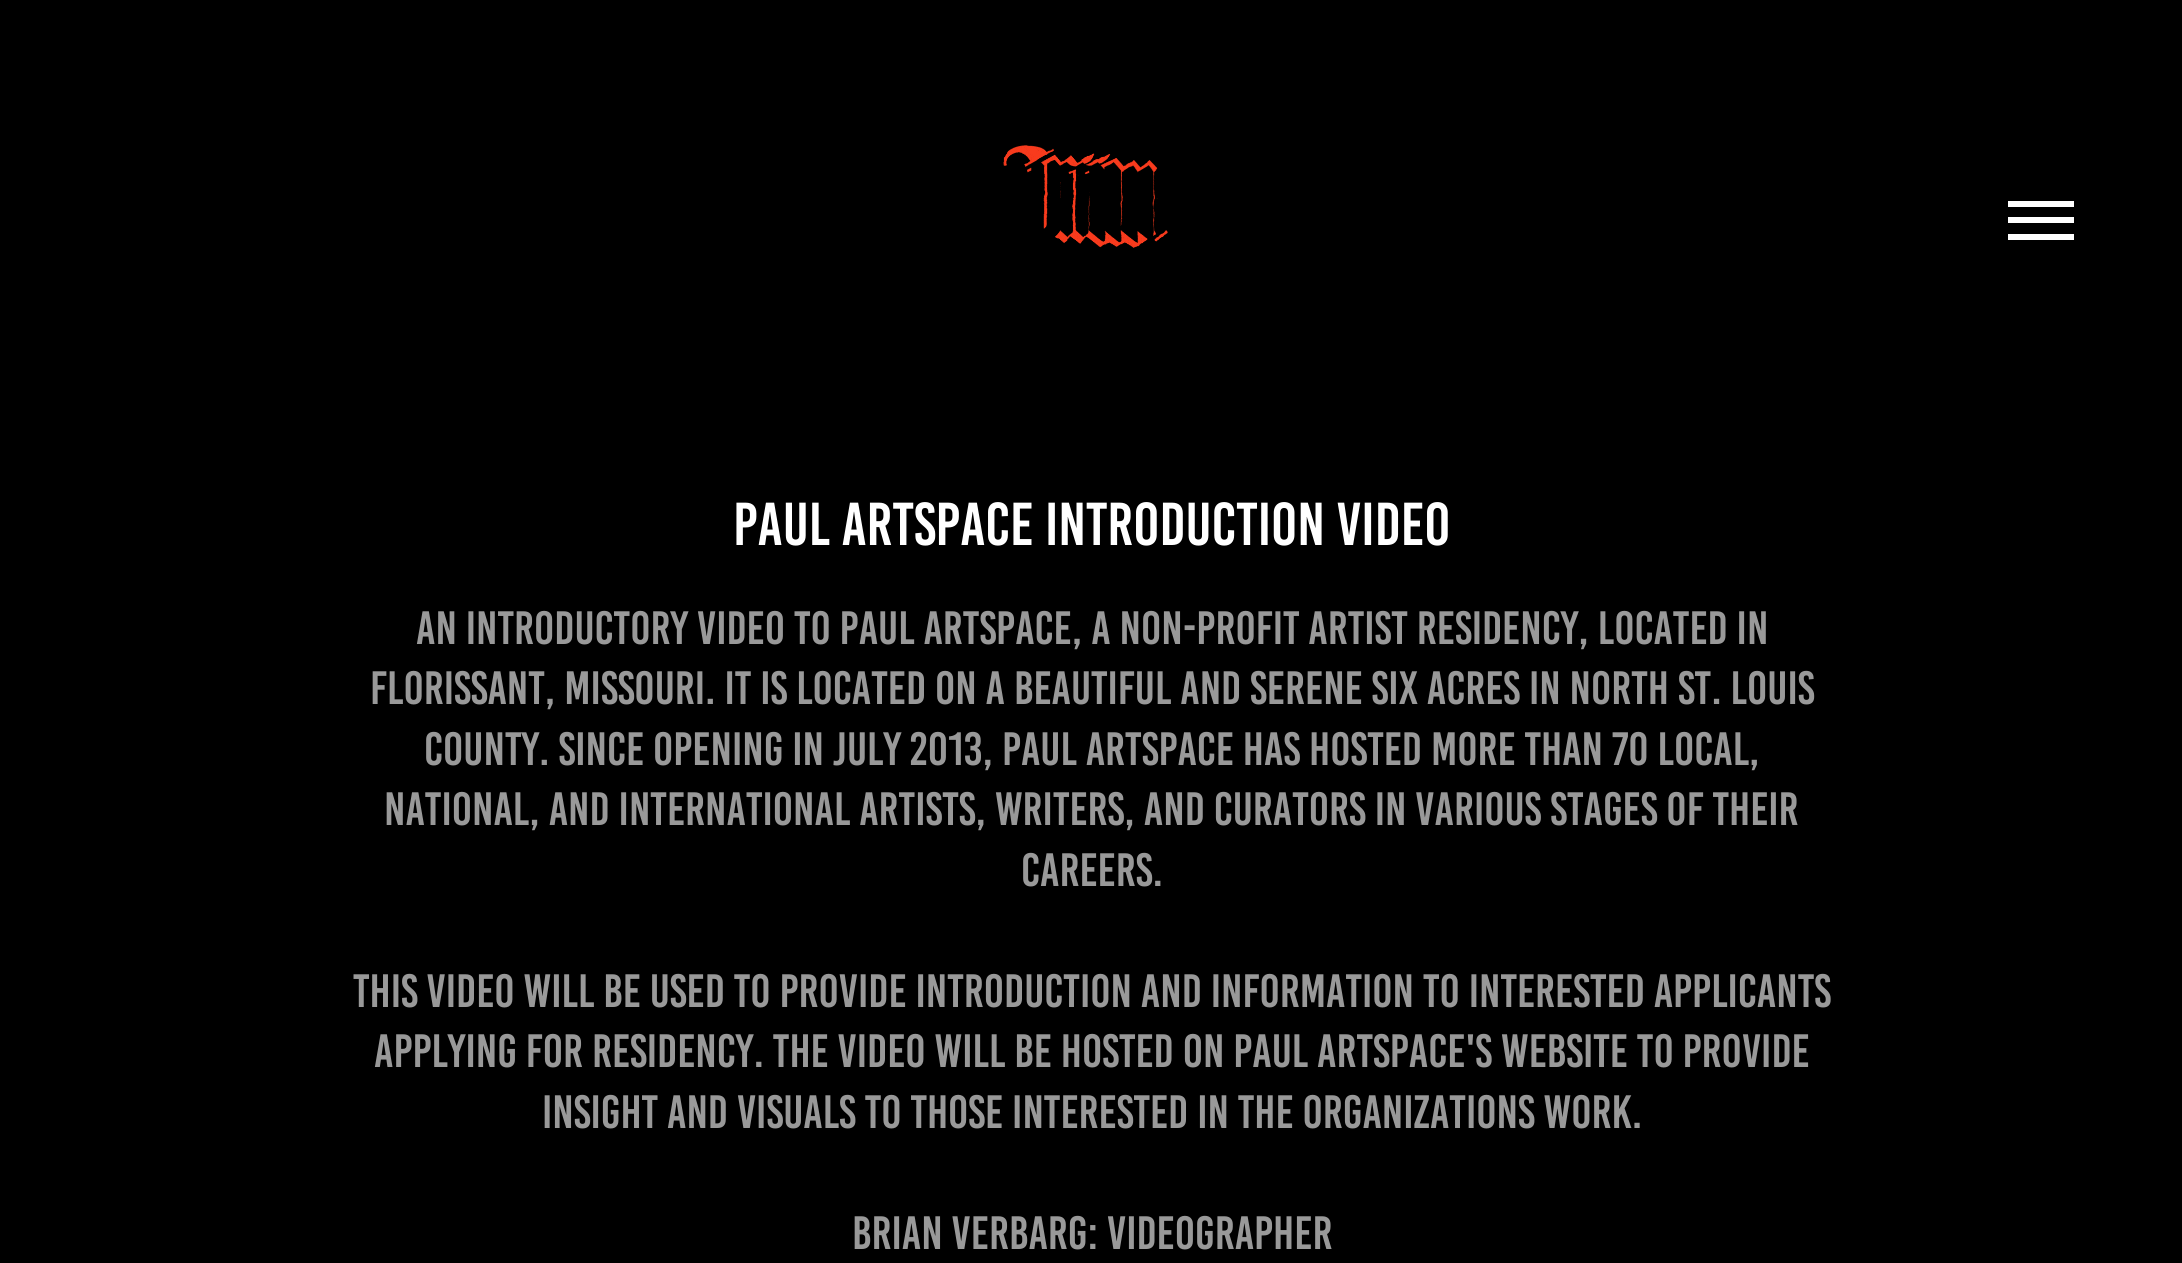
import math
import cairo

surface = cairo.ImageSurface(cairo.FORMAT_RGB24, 2182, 1263)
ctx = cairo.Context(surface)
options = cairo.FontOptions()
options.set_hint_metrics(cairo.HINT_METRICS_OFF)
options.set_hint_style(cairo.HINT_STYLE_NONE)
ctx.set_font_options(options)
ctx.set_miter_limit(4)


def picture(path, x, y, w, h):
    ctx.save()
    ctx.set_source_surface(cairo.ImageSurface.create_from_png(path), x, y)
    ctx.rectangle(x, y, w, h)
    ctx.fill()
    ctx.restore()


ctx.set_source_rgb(0, 0, 0)
ctx.paint()
picture("img1.png", 1003, 145, 165, 103)
ctx.set_source_rgb(1, 1, 1)
ctx.rectangle(2008, 201, 66, 6)
ctx.fill()
ctx.rectangle(2008, 217, 66, 6)
ctx.fill()
ctx.rectangle(2008, 234, 66, 6)
ctx.fill()
ctx.select_font_face("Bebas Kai")
ctx.set_font_size(60.5)
ctx.move_to(733, 545)
ctx.show_text("Paul Artspace Introduction Video")
ctx.set_font_size(46.75)
ctx.set_source_rgb(0.6, 0.6, 0.6)
ctx.move_to(416, 644)
ctx.show_text("An introductory video to Paul Artspace, a non-profit artist residency, located in")
ctx.move_to(370, 704)
ctx.show_text("Florissant, Missouri. It is located on a beautiful and serene six acres in north St. Louis")
ctx.move_to(424, 765)
ctx.show_text("County. Since opening in July 2013, Paul Artspace has hosted more than 70 local,")
ctx.move_to(384, 825)
ctx.show_text("national, and international artists, writers, and curators in various stages of their")
ctx.move_to(1021, 886)
ctx.show_text("careers.")
ctx.move_to(353, 1007)
ctx.show_text("This video will be used to provide introduction and information to interested applicants")
ctx.move_to(374, 1067)
ctx.show_text("applying for residency. The video will be hosted on Paul Artspace's website to provide")
ctx.move_to(542, 1128)
ctx.show_text("insight and visuals to those interested in the organizations work.")
ctx.move_to(852, 1249)
ctx.show_text("Brian Verbarg: Videographer")
surface.write_to_png("page.png")
